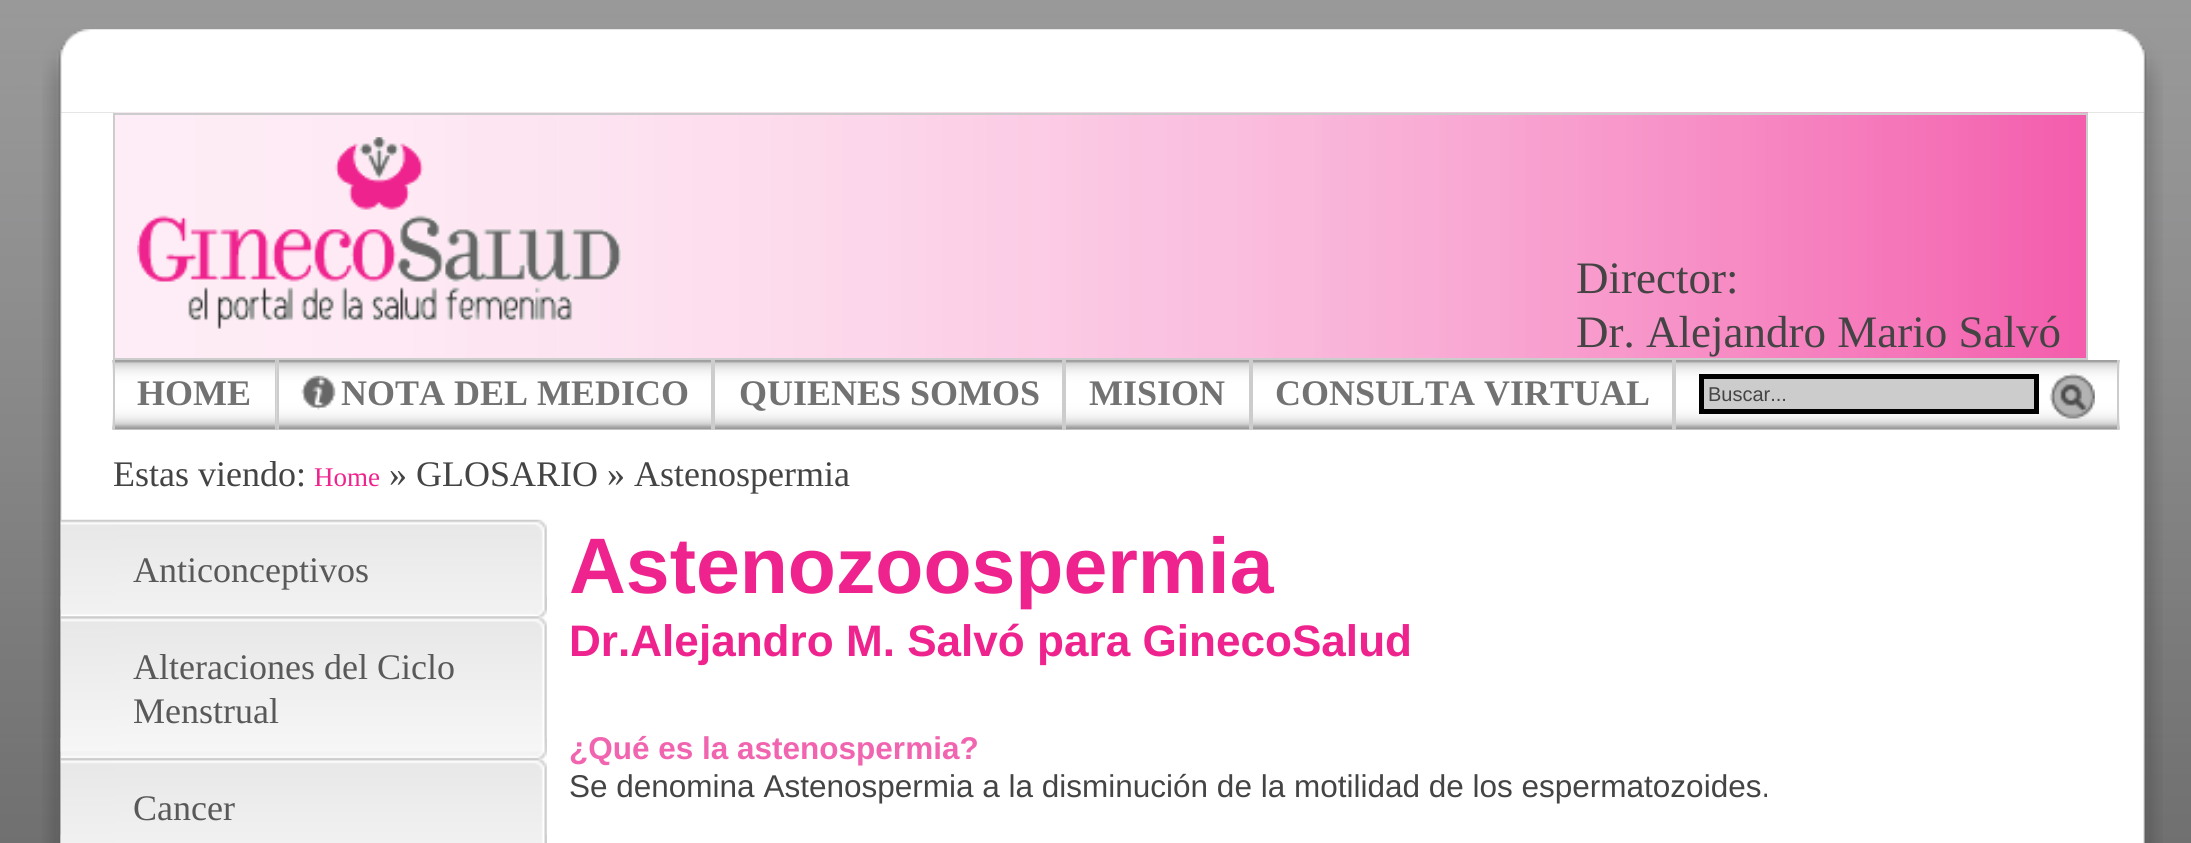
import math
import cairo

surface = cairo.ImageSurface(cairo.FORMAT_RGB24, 2191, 843)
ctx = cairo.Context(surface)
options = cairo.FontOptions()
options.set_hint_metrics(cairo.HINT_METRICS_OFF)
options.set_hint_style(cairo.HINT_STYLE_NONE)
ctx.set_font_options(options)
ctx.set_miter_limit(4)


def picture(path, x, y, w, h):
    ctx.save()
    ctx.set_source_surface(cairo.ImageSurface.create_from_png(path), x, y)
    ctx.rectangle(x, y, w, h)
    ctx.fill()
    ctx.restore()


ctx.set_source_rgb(1, 1, 1)
ctx.paint()
picture("img1.png", 0, 0, 2191, 843)
picture("img2.png", 42, 29, 2121, 84)
picture("img3.png", 42, 112, 2121, 731)
picture("img4.png", 114, 112, 1974, 246)
ctx.rectangle(114, 114, 1973, 245)
ctx.set_source_rgb(0.8, 0.8, 0.8)
ctx.stroke()
picture("img5.png", 137, 137, 484, 192)
ctx.select_font_face("Liberation Serif")
ctx.set_font_size(45)
ctx.set_source_rgb(0.267, 0.267, 0.267)
ctx.move_to(1576, 293)
ctx.show_text("Director:")
ctx.move_to(1576, 347)
ctx.show_text("Dr. Alejandro Mario Salvó")
picture("img6.png", 112, 360, 163, 70)
ctx.set_source_rgb(0.8, 0.8, 0.8)
ctx.rectangle(275, 360, 2, 70)
ctx.fill()
ctx.rectangle(113, 360, 2, 70)
ctx.fill()
ctx.select_font_face("Liberation Serif", cairo.FONT_SLANT_NORMAL, cairo.FONT_WEIGHT_BOLD)
ctx.set_font_size(36)
ctx.set_source_rgb(0.447, 0.447, 0.451)
ctx.move_to(137, 405)
ctx.show_text("HOME")
picture("img7.png", 276, 360, 435, 70)
ctx.set_source_rgb(0.8, 0.8, 0.8)
ctx.rectangle(711, 360, 4, 70)
ctx.fill()
ctx.rectangle(277, 360, 2, 70)
ctx.fill()
picture("img8.png", 301, 375, 35, 35)
ctx.set_source_rgb(0.447, 0.447, 0.451)
ctx.move_to(341, 405)
ctx.show_text("NOTA DEL MEDICO")
picture("img9.png", 715, 360, 347, 70)
ctx.set_source_rgb(0.8, 0.8, 0.8)
ctx.rectangle(1062, 360, 4, 70)
ctx.fill()
ctx.set_source_rgb(0.447, 0.447, 0.451)
ctx.move_to(739, 405)
ctx.show_text("QUIENES SOMOS")
picture("img10.png", 1066, 360, 183, 70)
ctx.set_source_rgb(0.8, 0.8, 0.8)
ctx.rectangle(1249, 360, 4, 70)
ctx.fill()
ctx.set_source_rgb(0.447, 0.447, 0.451)
ctx.move_to(1089, 405)
ctx.show_text("MISION")
picture("img11.png", 1253, 360, 419, 70)
ctx.set_source_rgb(0.8, 0.8, 0.8)
ctx.rectangle(1672, 360, 4, 70)
ctx.fill()
ctx.set_source_rgb(0.447, 0.447, 0.451)
ctx.move_to(1275, 405)
ctx.show_text("CONSULTA VIRTUAL")
picture("img12.png", 1676, 360, 444, 70)
ctx.set_source_rgb(0.8, 0.8, 0.8)
ctx.rectangle(2117, 360, 2, 70)
ctx.fill()
ctx.rectangle(1701.5, 376.5, 335, 35)
ctx.fill_preserve()
ctx.set_source_rgb(0, 0, 0)
ctx.set_line_width(5)
ctx.stroke()
ctx.select_font_face("Liberation Sans")
ctx.set_font_size(20)
ctx.set_source_rgb(0.267, 0.267, 0.267)
ctx.move_to(1708, 401)
ctx.show_text("Buscar...")
picture("img13.png", 2049, 373, 46, 46)
ctx.select_font_face("Liberation Serif")
ctx.set_font_size(36)
ctx.move_to(113, 486)
ctx.show_text("Estas viendo:")
ctx.set_font_size(27)
ctx.set_source_rgb(0.937, 0.137, 0.557)
ctx.move_to(314, 486)
ctx.show_text("Home")
ctx.set_font_size(36)
ctx.set_source_rgb(0.267, 0.267, 0.267)
ctx.move_to(389, 486)
ctx.show_text("» GLOSARIO » Astenospermia")
picture("img14.png", 60, 596, 487, 23)
picture("img15.png", 60, 519, 487, 91)
ctx.set_source_rgb(0.349, 0.349, 0.349)
ctx.move_to(133, 582)
ctx.show_text("Anticonceptivos")
picture("img16.png", 60, 738, 487, 23)
picture("img17.png", 60, 616, 487, 136)
ctx.move_to(133, 679)
ctx.show_text("Alteraciones del Ciclo")
ctx.move_to(133, 723)
ctx.show_text("Menstrual")
picture("img18.png", 60, 834, 487, 9)
picture("img19.png", 60, 758, 487, 85)
ctx.move_to(133, 820)
ctx.show_text("Cancer")
ctx.select_font_face("Liberation Sans", cairo.FONT_SLANT_NORMAL, cairo.FONT_WEIGHT_BOLD)
ctx.set_font_size(78.75)
ctx.set_source_rgb(0.937, 0.137, 0.557)
ctx.move_to(569, 593)
ctx.show_text("Astenozoospermia")
ctx.set_font_size(44.1)
ctx.move_to(569, 656)
ctx.show_text("Dr.Alejandro M. Salvó para GinecoSalud")
ctx.set_font_size(31.5)
ctx.set_source_rgb(0.945, 0.396, 0.69)
ctx.move_to(569, 759)
ctx.show_text("¿Qué es la astenospermia?")
ctx.select_font_face("Liberation Sans")
ctx.set_source_rgb(0.267, 0.267, 0.267)
ctx.move_to(569, 797)
ctx.show_text("Se denomina Astenospermia a la disminución de la motilidad de los espermatozoides.")
surface.write_to_png("page.png")
